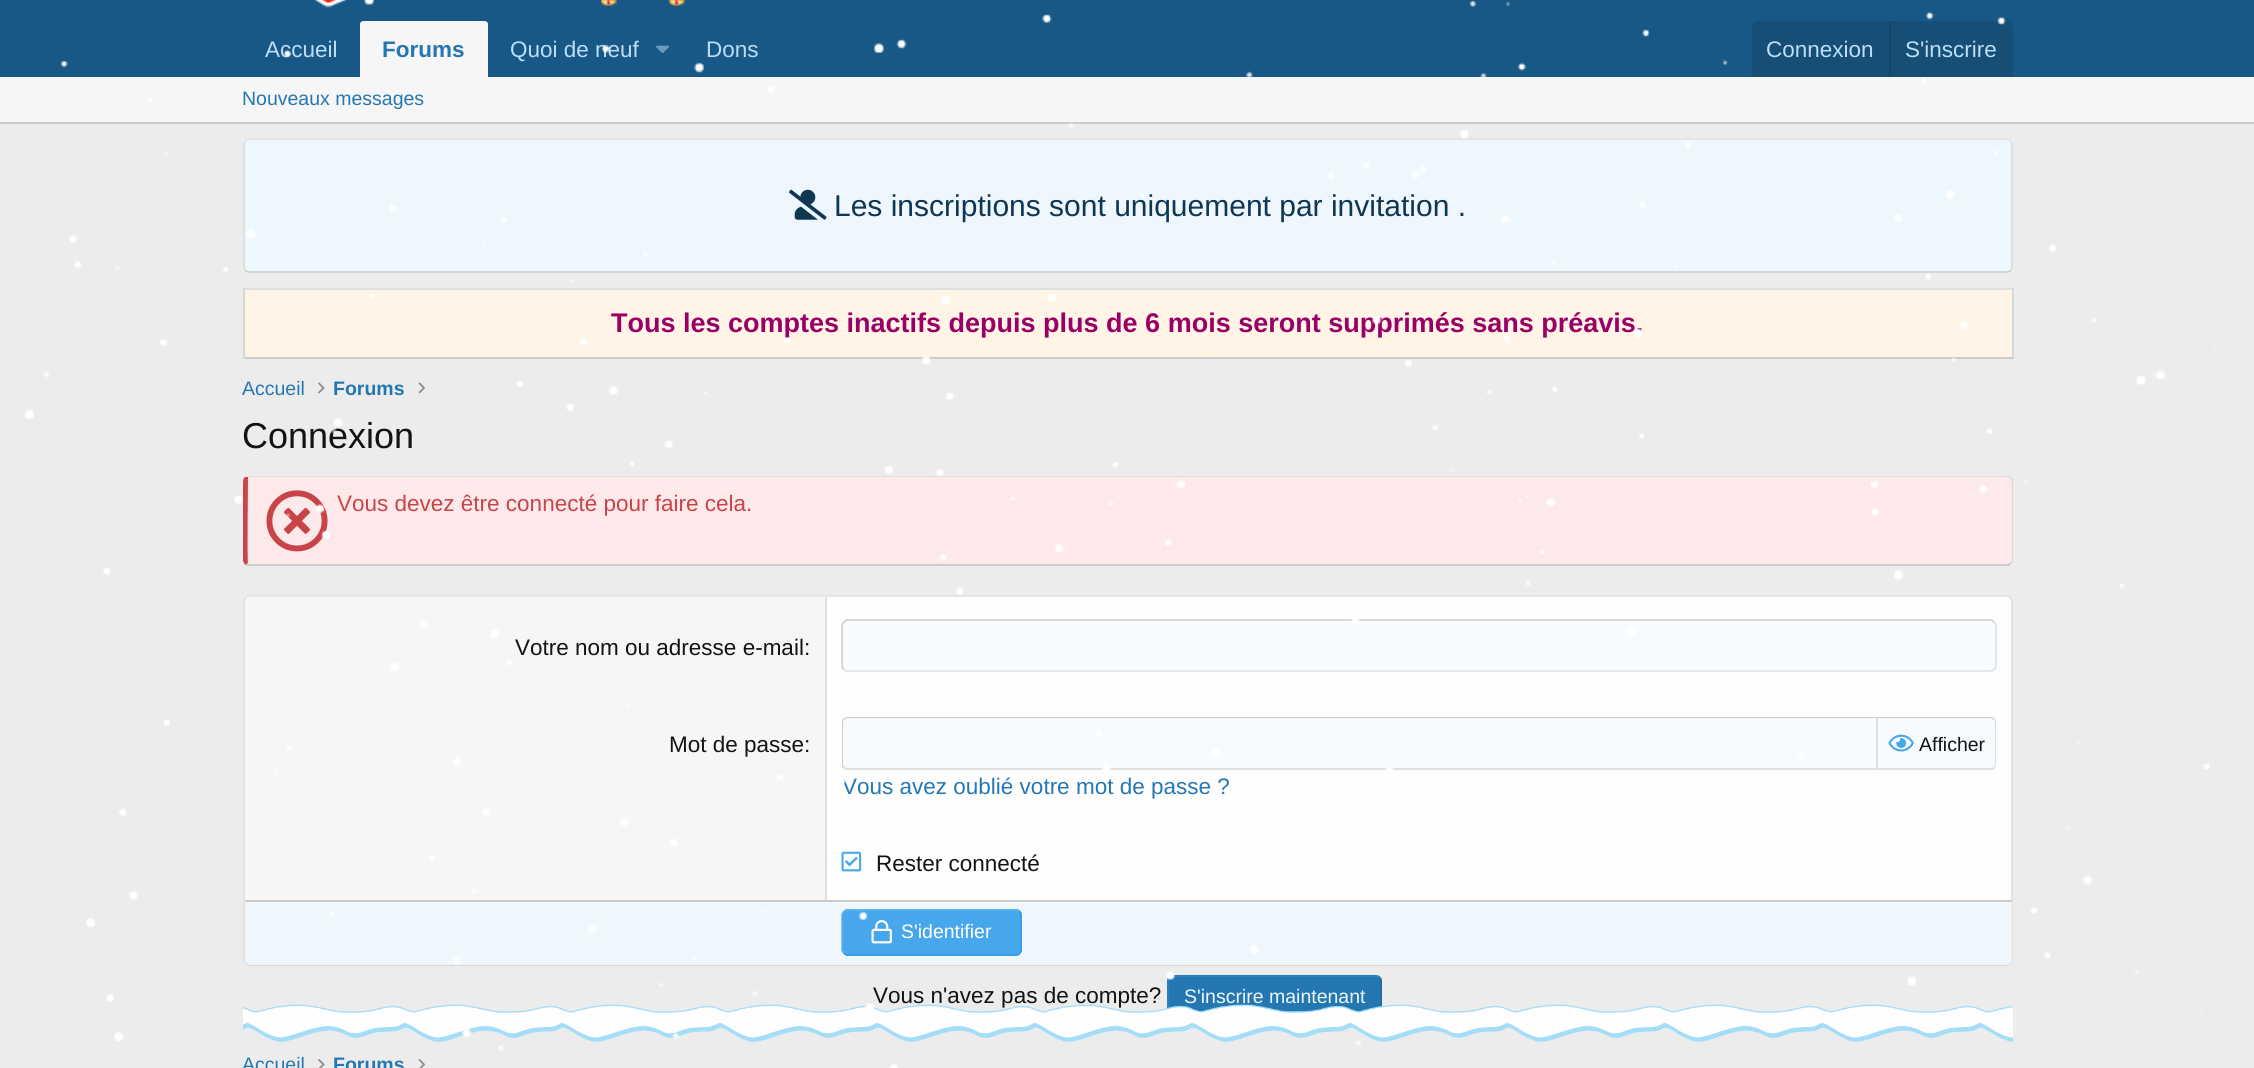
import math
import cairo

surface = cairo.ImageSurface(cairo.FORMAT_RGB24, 2254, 1068)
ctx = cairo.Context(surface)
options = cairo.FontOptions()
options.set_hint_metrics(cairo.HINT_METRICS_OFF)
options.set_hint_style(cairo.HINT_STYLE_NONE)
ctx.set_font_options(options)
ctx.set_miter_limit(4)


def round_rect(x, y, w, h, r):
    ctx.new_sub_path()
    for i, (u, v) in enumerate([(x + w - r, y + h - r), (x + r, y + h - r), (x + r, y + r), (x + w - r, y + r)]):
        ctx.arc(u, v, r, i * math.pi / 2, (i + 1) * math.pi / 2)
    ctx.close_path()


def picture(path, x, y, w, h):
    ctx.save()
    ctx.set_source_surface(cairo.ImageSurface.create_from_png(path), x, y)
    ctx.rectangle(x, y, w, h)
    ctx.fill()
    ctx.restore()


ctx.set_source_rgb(0.925, 0.925, 0.925)
ctx.paint()
ctx.set_source_rgb(0.094, 0.345, 0.525)
ctx.rectangle(0, 0, 2254, 77)
ctx.fill()
picture("img2.png", 314, 0, 372, 8)
ctx.select_font_face("Liberation Sans")
ctx.set_font_size(22.5)
ctx.set_source_rgb(0.737, 0.871, 0.961)
ctx.move_to(265, 57)
ctx.show_text("Accueil")
ctx.set_source_rgb(0.961, 0.961, 0.961)
ctx.new_path()
ctx.move_to(363, 21)
ctx.line_to(485, 21)
ctx.curve_to(486.5, 21, 488, 22.5, 488, 24)
ctx.line_to(488, 77)
ctx.line_to(360, 77)
ctx.line_to(360, 24)
ctx.curve_to(360, 22.5, 361.5, 21, 363, 21)
ctx.close_path()
ctx.fill()
ctx.select_font_face("Liberation Sans", cairo.FONT_SLANT_NORMAL, cairo.FONT_WEIGHT_BOLD)
ctx.set_source_rgb(0.145, 0.467, 0.694)
ctx.move_to(382, 57)
ctx.show_text("Forums")
ctx.select_font_face("Liberation Sans")
ctx.set_source_rgb(0.737, 0.871, 0.961)
ctx.move_to(510, 57)
ctx.show_text("Quoi de neuf")
picture("img3.png", 656, 45, 13, 9)
ctx.move_to(706, 57)
ctx.show_text("Dons")
ctx.set_source_rgb(0.09, 0.306, 0.459)
ctx.new_path()
ctx.move_to(1758, 21)
ctx.line_to(2007, 21)
ctx.curve_to(2010.5, 21, 2013, 23.5, 2013, 27)
ctx.line_to(2013, 77)
ctx.line_to(1752, 77)
ctx.line_to(1752, 27)
ctx.curve_to(1752, 23.5, 1754.5, 21, 1758, 21)
ctx.close_path()
ctx.fill()
ctx.set_source_rgb(0.737, 0.871, 0.961)
ctx.move_to(1766, 57)
ctx.show_text("Connexion")
ctx.set_source_rgb(0.09, 0.271, 0.4)
ctx.rectangle(1889, 21, 2, 56)
ctx.fill()
ctx.set_source_rgb(0.737, 0.871, 0.961)
ctx.move_to(1905, 57)
ctx.show_text("S'inscrire")
ctx.set_source_rgb(0.961, 0.961, 0.961)
ctx.rectangle(0, 77, 2254, 45)
ctx.fill()
ctx.set_source_rgb(0.796, 0.796, 0.796)
ctx.rectangle(0, 122, 2254, 2)
ctx.fill()
ctx.set_font_size(19.5)
ctx.set_source_rgb(0.145, 0.467, 0.694)
ctx.move_to(242, 105)
ctx.show_text("Nouveaux messages")
ctx.set_source_rgb(0.929, 0.965, 0.992)
round_rect(243, 138, 1770, 135, 6)
ctx.fill()
ctx.new_path()
ctx.move_to(245.5, 140.5)
ctx.curve_to(246.5, 139.5, 247.5, 139, 249, 139)
ctx.line_to(2007, 139)
ctx.curve_to(2008.5, 139, 2009.5, 139.5, 2010.5, 140.5)
ctx.set_source_rgb(0.875, 0.875, 0.875)
ctx.set_line_width(1.5)
ctx.stroke()
ctx.new_path()
ctx.move_to(2010.5, 140.5)
ctx.line_to(2012, 143.5)
ctx.line_to(2012, 267.5)
ctx.line_to(2010.5, 270.5)
ctx.set_source_rgb(0.847, 0.847, 0.847)
ctx.stroke()
ctx.new_path()
ctx.move_to(2010.5, 270.5)
ctx.curve_to(2009.5, 271.5, 2008.5, 272, 2007, 272)
ctx.line_to(249, 272)
ctx.curve_to(247.5, 272, 246.5, 271.5, 245.5, 270.5)
ctx.set_source_rgb(0.796, 0.796, 0.796)
ctx.stroke()
ctx.new_path()
ctx.move_to(245.5, 270.5)
ctx.line_to(244, 267.5)
ctx.line_to(244, 143.5)
ctx.line_to(245.5, 140.5)
ctx.set_source_rgb(0.847, 0.847, 0.847)
ctx.stroke()
picture("img4.png", 789, 189, 38, 31)
ctx.set_font_size(30)
ctx.set_source_rgb(0.059, 0.212, 0.322)
ctx.move_to(834, 216)
ctx.show_text("Les inscriptions sont uniquement par invitation .")
ctx.set_source_rgb(0.875, 0.875, 0.875)
ctx.rectangle(243, 288, 1770, 2)
ctx.fill()
ctx.set_source_rgb(0.847, 0.847, 0.847)
ctx.rectangle(2012, 288, 2, 71)
ctx.fill()
ctx.set_source_rgb(0.796, 0.796, 0.796)
ctx.rectangle(243, 357, 1770, 2)
ctx.fill()
ctx.set_source_rgb(0.847, 0.847, 0.847)
ctx.rectangle(243, 288, 2, 71)
ctx.fill()
ctx.set_source_rgb(1, 0.957, 0.898)
ctx.rectangle(245, 290, 1767, 67)
ctx.fill()
ctx.select_font_face("Liberation Sans", cairo.FONT_SLANT_NORMAL, cairo.FONT_WEIGHT_BOLD)
ctx.set_font_size(27)
ctx.set_source_rgb(0.6, 0, 0.4)
ctx.move_to(611, 332)
ctx.show_text("Tous les comptes inactifs depuis plus de 6 mois seront supprimés sans préavis.")
ctx.select_font_face("Liberation Sans")
ctx.set_font_size(19.5)
ctx.set_source_rgb(0.145, 0.467, 0.694)
ctx.move_to(242, 395)
ctx.show_text("Accueil")
picture("img5.png", 318, 382, 7, 12)
ctx.select_font_face("Liberation Sans", cairo.FONT_SLANT_NORMAL, cairo.FONT_WEIGHT_BOLD)
ctx.move_to(333, 395)
ctx.show_text("Forums")
picture("img6.png", 418, 382, 7, 12)
ctx.select_font_face("Liberation Sans")
ctx.set_font_size(36)
ctx.set_source_rgb(0.078, 0.078, 0.078)
ctx.move_to(242, 448)
ctx.show_text("Connexion")
ctx.set_source_rgb(0.992, 0.914, 0.914)
ctx.new_path()
ctx.move_to(249, 477)
ctx.line_to(2007, 477)
ctx.curve_to(2009, 477, 2012, 479, 2012, 482)
ctx.line_to(2012, 560)
ctx.curve_to(2012, 562, 2009, 564, 2007, 564)
ctx.line_to(249, 564)
ctx.curve_to(248, 564, 248, 562, 248, 560)
ctx.line_to(248, 482)
ctx.curve_to(248, 479, 248, 477, 249, 477)
ctx.close_path()
ctx.fill()
ctx.set_source_rgb(0.875, 0.875, 0.875)
ctx.new_path()
ctx.move_to(249, 476)
ctx.line_to(246, 477)
ctx.line_to(248, 477)
ctx.line_to(2007, 477)
ctx.line_to(2010, 478)
ctx.line_to(2011, 477)
ctx.curve_to(2010, 476, 2008, 476, 2007, 476)
ctx.close_path()
ctx.fill()
ctx.set_source_rgb(0.847, 0.847, 0.847)
ctx.new_path()
ctx.move_to(2011, 477)
ctx.line_to(2013, 481)
ctx.line_to(2013, 561)
ctx.line_to(2011, 564)
ctx.line_to(2010, 563)
ctx.line_to(2012, 560)
ctx.line_to(2012, 481)
ctx.line_to(2010, 478)
ctx.close_path()
ctx.fill()
ctx.set_source_rgb(0.796, 0.796, 0.796)
ctx.new_path()
ctx.move_to(247, 566)
ctx.line_to(245, 565)
ctx.line_to(248, 564)
ctx.line_to(2007, 564)
ctx.line_to(2010, 563)
ctx.line_to(2011, 564)
ctx.line_to(2009, 566)
ctx.close_path()
ctx.fill()
ctx.set_source_rgb(0.784, 0.267, 0.282)
ctx.new_path()
ctx.move_to(243, 482)
ctx.line_to(243, 561)
ctx.line_to(245, 565)
ctx.line_to(248, 563)
ctx.curve_to(247, 561, 248, 478, 248, 477)
ctx.line_to(246, 477)
ctx.curve_to(244, 477, 243, 479, 243, 482)
ctx.close_path()
ctx.fill()
picture("img7.png", 266, 490, 62, 62)
ctx.set_font_size(22.5)
ctx.move_to(337, 511)
ctx.show_text("Vous devez être connecté pour faire cela.")
ctx.set_source_rgb(0.996, 0.996, 0.996)
round_rect(243, 596, 1770, 370, 6)
ctx.fill()
ctx.new_path()
ctx.move_to(245.5, 598)
ctx.curve_to(246.5, 597, 247.5, 596, 249, 596)
ctx.line_to(2007, 596)
ctx.curve_to(2008.5, 596, 2009.5, 597, 2010.5, 598)
ctx.set_source_rgb(0.875, 0.875, 0.875)
ctx.stroke()
ctx.new_path()
ctx.move_to(2010.5, 598)
ctx.curve_to(2011.5, 599, 2012, 600, 2012, 601.5)
ctx.line_to(2012, 960)
ctx.curve_to(2012, 961.5, 2011.5, 962.5, 2010.5, 963.5)
ctx.set_source_rgb(0.847, 0.847, 0.847)
ctx.stroke()
ctx.new_path()
ctx.move_to(2010.5, 963.5)
ctx.curve_to(2009.5, 964.5, 2008.5, 965, 2007, 965)
ctx.line_to(249, 965)
ctx.curve_to(247.5, 965, 246.5, 964.5, 245.5, 963.5)
ctx.set_source_rgb(0.796, 0.796, 0.796)
ctx.stroke()
ctx.new_path()
ctx.move_to(245.5, 963.5)
ctx.curve_to(244.5, 962.5, 244, 961.5, 244, 960)
ctx.line_to(244, 601.5)
ctx.curve_to(244, 600, 244.5, 599, 245.5, 598)
ctx.set_source_rgb(0.847, 0.847, 0.847)
ctx.stroke()
ctx.set_source_rgb(0.961, 0.961, 0.961)
ctx.new_path()
ctx.move_to(250, 597)
ctx.line_to(827, 597)
ctx.line_to(827, 695)
ctx.line_to(245, 695)
ctx.line_to(245, 602)
ctx.curve_to(245, 599, 247, 597, 250, 597)
ctx.close_path()
ctx.fill()
ctx.set_source_rgb(0.875, 0.875, 0.875)
ctx.rectangle(825, 597, 2, 303)
ctx.fill()
ctx.set_source_rgb(0.078, 0.078, 0.078)
ctx.move_to(515, 655)
ctx.show_text("Votre nom ou adresse e-mail:")
ctx.set_source_rgb(0.969, 0.984, 0.996)
round_rect(842, 620, 1155, 52, 6)
ctx.fill()
ctx.new_path()
ctx.move_to(1994, 622)
ctx.curve_to(1995, 623, 1996, 624, 1996, 625.5)
ctx.line_to(1996, 666)
ctx.curve_to(1996, 667.5, 1995, 668.5, 1994, 669.5)
ctx.curve_to(1993, 670.5, 1992, 671, 1990.5, 671)
ctx.line_to(847.5, 671)
ctx.curve_to(846, 671, 845, 670.5, 844, 669.5)
ctx.set_source_rgb(0.875, 0.875, 0.875)
ctx.stroke()
ctx.new_path()
ctx.move_to(844, 669.5)
ctx.curve_to(843, 668.5, 842, 667.5, 842, 666)
ctx.line_to(842, 625.5)
ctx.curve_to(842, 624, 843, 623, 844, 622)
ctx.curve_to(845, 621, 846, 620, 847.5, 620)
ctx.line_to(1990.5, 620)
ctx.curve_to(1992, 620, 1993, 621, 1994, 622)
ctx.set_source_rgb(0.796, 0.796, 0.796)
ctx.stroke()
ctx.set_source_rgb(0.961, 0.961, 0.961)
ctx.rectangle(245, 695, 580, 205)
ctx.fill()
ctx.set_source_rgb(0.078, 0.078, 0.078)
ctx.move_to(669, 752)
ctx.show_text("Mot de passe:")
ctx.set_source_rgb(0.969, 0.984, 0.996)
ctx.new_path()
ctx.move_to(848, 717)
ctx.line_to(1877, 717)
ctx.line_to(1877, 770)
ctx.line_to(848, 770)
ctx.curve_to(844.5, 770, 842, 767.5, 842, 764)
ctx.line_to(842, 723)
ctx.curve_to(842, 719.5, 844.5, 717, 848, 717)
ctx.close_path()
ctx.fill()
ctx.set_source_rgb(0.796, 0.796, 0.796)
ctx.new_path()
ctx.move_to(848, 717)
ctx.line_to(1876, 717)
ctx.line_to(1876, 718)
ctx.line_to(848, 718)
ctx.curve_to(846, 718, 845, 719, 844, 720)
ctx.line_to(843, 719)
ctx.curve_to(844, 718, 846, 717, 848, 717)
ctx.close_path()
ctx.fill()
ctx.set_source_rgb(0.875, 0.875, 0.875)
ctx.new_path()
ctx.move_to(845, 770)
ctx.line_to(843, 768)
ctx.line_to(844, 767)
ctx.curve_to(845, 767, 846, 768, 848, 768)
ctx.line_to(1876, 768)
ctx.line_to(1876, 770)
ctx.close_path()
ctx.fill()
ctx.set_source_rgb(0.796, 0.796, 0.796)
ctx.new_path()
ctx.move_to(844, 767)
ctx.line_to(843, 768)
ctx.curve_to(842, 767, 842, 765, 842, 764)
ctx.line_to(842, 723)
ctx.curve_to(842, 722, 842, 720, 843, 719)
ctx.line_to(844, 720)
ctx.curve_to(843, 721, 843, 722, 843, 723)
ctx.line_to(843, 764)
ctx.curve_to(843, 765, 843, 766, 844, 767)
ctx.close_path()
ctx.fill()
ctx.set_source_rgb(0.969, 0.984, 0.996)
ctx.new_path()
ctx.move_to(1877, 717)
ctx.line_to(1991, 717)
ctx.curve_to(1994.5, 717, 1997, 719.5, 1997, 723)
ctx.line_to(1997, 764)
ctx.curve_to(1997, 767.5, 1994.5, 770, 1991, 770)
ctx.line_to(1877, 770)
ctx.close_path()
ctx.fill()
ctx.set_source_rgb(0.796, 0.796, 0.796)
ctx.new_path()
ctx.move_to(1878, 718)
ctx.line_to(1991, 718)
ctx.line_to(1994, 720)
ctx.line_to(1995, 719)
ctx.line_to(1991, 717)
ctx.line_to(1876, 717)
ctx.close_path()
ctx.fill()
ctx.set_source_rgb(0.875, 0.875, 0.875)
ctx.new_path()
ctx.move_to(1995, 719)
ctx.curve_to(1996, 720, 1996, 722, 1996, 723)
ctx.line_to(1996, 764)
ctx.curve_to(1996, 765, 1996, 767, 1995, 768)
ctx.line_to(1994, 767)
ctx.curve_to(1995, 766, 1995, 765, 1995, 764)
ctx.line_to(1995, 723)
ctx.curve_to(1995, 722, 1995, 721, 1994, 720)
ctx.close_path()
ctx.fill()
ctx.new_path()
ctx.move_to(1995, 768)
ctx.line_to(1993, 770)
ctx.line_to(1876, 770)
ctx.line_to(1878, 768)
ctx.line_to(1991, 768)
ctx.line_to(1994, 767)
ctx.close_path()
ctx.fill()
ctx.new_path()
ctx.move_to(1876, 770)
ctx.line_to(1878, 768)
ctx.line_to(1878, 718)
ctx.line_to(1876, 717)
ctx.close_path()
ctx.fill()
picture("img8.png", 1888, 734, 26, 18)
ctx.set_font_size(19.5)
ctx.set_source_rgb(0.078, 0.078, 0.078)
ctx.move_to(1919, 751)
ctx.show_text("Afficher")
ctx.set_font_size(22.5)
ctx.set_source_rgb(0.145, 0.467, 0.694)
ctx.move_to(842, 794)
ctx.show_text("Vous avez oublié votre mot de passe ?")
picture("img9.png", 841, 851, 21, 21)
ctx.set_source_rgb(0.078, 0.078, 0.078)
ctx.move_to(876, 871)
ctx.show_text("Rester connecté")
ctx.set_source_rgba(0.929, 0.965, 0.992, 0.9)
ctx.new_path()
ctx.move_to(245, 900)
ctx.line_to(2012, 900)
ctx.line_to(2012, 960)
ctx.curve_to(2012, 963, 2010, 965, 2007, 965)
ctx.line_to(250, 965)
ctx.curve_to(247, 965, 245, 963, 245, 960)
ctx.close_path()
ctx.fill()
ctx.set_source_rgb(0.796, 0.796, 0.796)
ctx.rectangle(245, 900, 1767, 2)
ctx.fill()
ctx.set_source_rgb(0.278, 0.655, 0.922)
round_rect(842, 909, 180, 47, 6)
ctx.fill()
ctx.new_path()
ctx.move_to(1019, 911.5)
ctx.curve_to(1020, 912.5, 1021, 913.5, 1021, 915)
ctx.line_to(1021, 949.5)
ctx.curve_to(1021, 951, 1020, 952, 1019, 953)
ctx.curve_to(1018, 954, 1017, 955, 1015.5, 955)
ctx.line_to(847.5, 955)
ctx.curve_to(846, 955, 845, 954, 844, 953)
ctx.set_source_rgb(0.188, 0.612, 0.91)
ctx.stroke()
ctx.new_path()
ctx.move_to(844, 953)
ctx.curve_to(843, 952, 842, 951, 842, 949.5)
ctx.line_to(842, 915)
ctx.curve_to(842, 913.5, 843, 912.5, 844, 911.5)
ctx.curve_to(845, 910.5, 846, 910, 847.5, 910)
ctx.line_to(1015.5, 910)
ctx.curve_to(1017, 910, 1018, 910.5, 1019, 911.5)
ctx.set_source_rgb(0.369, 0.698, 0.929)
ctx.stroke()
picture("img10.png", 871, 920, 21, 24)
ctx.set_font_size(19.5)
ctx.set_source_rgb(1, 1, 1)
ctx.move_to(901, 938)
ctx.show_text("S'identifier")
ctx.set_font_size(22.5)
ctx.set_source_rgb(0.078, 0.078, 0.078)
ctx.move_to(873, 1003)
ctx.show_text("Vous n'avez pas de compte?")
ctx.set_source_rgb(0.145, 0.467, 0.694)
round_rect(1167, 975, 215, 45, 6)
ctx.fill()
ctx.new_path()
ctx.move_to(1379, 977.5)
ctx.curve_to(1380, 978.5, 1381, 979.5, 1381, 981)
ctx.line_to(1381, 1014)
ctx.curve_to(1381, 1015.5, 1380, 1016.5, 1379, 1017.5)
ctx.curve_to(1378, 1018.5, 1377, 1019, 1375.5, 1019)
ctx.line_to(1173, 1019)
ctx.curve_to(1171.5, 1019, 1170.5, 1018.5, 1169.5, 1017.5)
ctx.set_source_rgb(0.129, 0.412, 0.612)
ctx.stroke()
ctx.new_path()
ctx.move_to(1169.5, 1017.5)
ctx.curve_to(1168.5, 1016.5, 1168, 1015.5, 1168, 1014)
ctx.line_to(1168, 981)
ctx.curve_to(1168, 979.5, 1168.5, 978.5, 1169.5, 977.5)
ctx.curve_to(1170.5, 976.5, 1171.5, 976, 1173, 976)
ctx.line_to(1375.5, 976)
ctx.curve_to(1377, 976, 1378, 976.5, 1379, 977.5)
ctx.set_source_rgb(0.161, 0.522, 0.776)
ctx.stroke()
ctx.set_font_size(19.5)
ctx.set_source_rgb(0.929, 0.965, 0.992)
ctx.move_to(1184, 1003)
ctx.show_text("S'inscrire maintenant")
picture("img11.png", 243, 1004, 1770, 38)
ctx.set_source_rgb(0.145, 0.467, 0.694)
ctx.move_to(242, 1071)
ctx.show_text("Accueil")
picture("img12.png", 318, 1059, 7, 9)
ctx.select_font_face("Liberation Sans", cairo.FONT_SLANT_NORMAL, cairo.FONT_WEIGHT_BOLD)
ctx.move_to(333, 1071)
ctx.show_text("Forums")
picture("img13.png", 418, 1059, 7, 9)
picture("img1.png", 24, 0, 2193, 1068)
surface.write_to_png("page.png")
